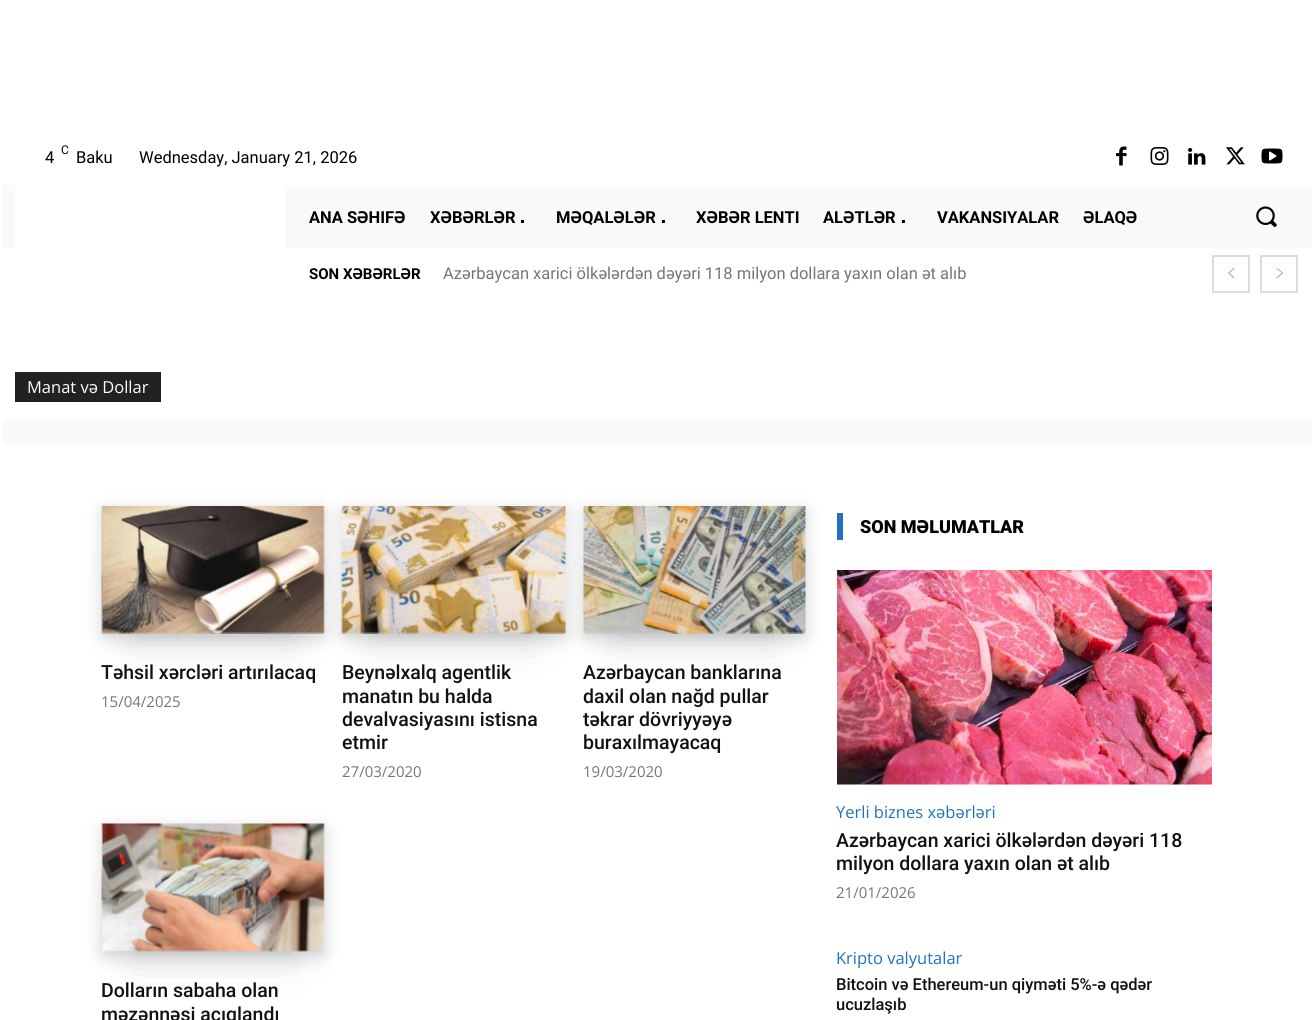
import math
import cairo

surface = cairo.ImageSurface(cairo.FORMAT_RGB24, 1312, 1020)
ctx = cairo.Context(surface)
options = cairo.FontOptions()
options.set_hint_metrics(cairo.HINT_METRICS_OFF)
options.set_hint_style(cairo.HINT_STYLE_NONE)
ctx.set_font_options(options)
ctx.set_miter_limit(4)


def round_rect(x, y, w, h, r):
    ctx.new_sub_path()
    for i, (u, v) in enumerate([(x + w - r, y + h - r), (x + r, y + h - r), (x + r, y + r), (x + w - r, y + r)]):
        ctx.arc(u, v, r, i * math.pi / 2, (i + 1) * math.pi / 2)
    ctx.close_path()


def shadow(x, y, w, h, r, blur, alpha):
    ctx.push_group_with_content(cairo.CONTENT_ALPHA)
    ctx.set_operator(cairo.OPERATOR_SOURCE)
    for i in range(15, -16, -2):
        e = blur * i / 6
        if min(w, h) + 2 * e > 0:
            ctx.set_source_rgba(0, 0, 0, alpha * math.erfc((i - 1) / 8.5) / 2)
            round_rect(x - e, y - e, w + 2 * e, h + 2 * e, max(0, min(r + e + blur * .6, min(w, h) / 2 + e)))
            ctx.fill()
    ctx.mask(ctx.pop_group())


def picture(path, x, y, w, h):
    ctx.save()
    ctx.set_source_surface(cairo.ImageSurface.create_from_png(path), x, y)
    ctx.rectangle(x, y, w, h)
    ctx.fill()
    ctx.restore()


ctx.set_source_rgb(1, 1, 1)
ctx.paint()
ctx.select_font_face("Roboto")
ctx.set_font_size(12)
ctx.set_source_rgb(0, 0, 0)
ctx.move_to(61, 154)
ctx.show_text("C")
ctx.set_font_size(16.5)
ctx.move_to(45, 163)
ctx.show_text("4")
ctx.move_to(76, 163)
ctx.show_text("Baku")
ctx.move_to(139, 163)
ctx.show_text("Wednesday, January 21, 2026")
picture("img1.png", 1116, 146, 11, 20)
picture("img2.png", 1150, 147, 19, 18)
picture("img3.png", 1188, 148, 18, 17)
picture("img4.png", 1226, 147, 19, 18)
picture("img5.png", 1261, 148, 22, 16)
ctx.set_source_rgb(0.976, 0.976, 0.976)
ctx.rectangle(2, 185, 1310, 63)
ctx.fill()
ctx.set_source_rgb(1, 1, 1)
ctx.rectangle(15, 185, 270, 63)
ctx.fill()
ctx.select_font_face("Roboto", cairo.FONT_SLANT_NORMAL, cairo.FONT_WEIGHT_BOLD)
ctx.set_source_rgb(0, 0, 0)
ctx.move_to(309, 223)
ctx.show_text("ANA SƏHIFƏ")
ctx.move_to(430, 223)
ctx.show_text("XƏBƏRLƏR")
ctx.rectangle(521, 220, 3, 3)
ctx.fill()
ctx.move_to(556, 223)
ctx.show_text("MƏQALƏLƏR")
ctx.rectangle(662, 220, 3, 3)
ctx.fill()
ctx.move_to(696, 223)
ctx.show_text("XƏBƏR LENTI")
ctx.move_to(823, 223)
ctx.show_text("ALƏTLƏR")
ctx.rectangle(902, 220, 3, 3)
ctx.fill()
ctx.move_to(937, 223)
ctx.show_text("VAKANSIYALAR")
ctx.move_to(1083, 223)
ctx.show_text("ƏLAQƏ")
picture("img6.png", 1256, 206, 21, 21)
ctx.set_font_size(15)
ctx.move_to(309, 279)
ctx.show_text("SON XƏBƏRLƏR")
ctx.select_font_face("Roboto")
ctx.set_font_size(16.5)
ctx.set_source_rgb(0.463, 0.463, 0.463)
ctx.move_to(443, 279)
ctx.show_text("Azərbaycan xarici ölkələrdən dəyəri 118 milyon dollara yaxın olan ət alıb")
ctx.rectangle(1213, 256, 36, 36)
ctx.set_source_rgb(0.863, 0.863, 0.863)
ctx.stroke()
picture("img7.png", 1228, 267, 7, 12)
ctx.rectangle(1261, 256, 36, 36)
ctx.stroke()
picture("img8.png", 1276, 268, 7, 11)
ctx.set_source_rgb(0.133, 0.133, 0.133)
ctx.rectangle(15, 372, 146, 30)
ctx.fill()
ctx.select_font_face("Open Sans")
ctx.set_source_rgb(1, 1, 1)
ctx.move_to(27, 393)
ctx.show_text("Manat və Dollar")
ctx.set_source_rgb(0.976, 0.976, 0.976)
ctx.rectangle(2, 420, 1310, 24)
ctx.fill()
ctx.set_source_rgb(0.027, 0.039, 0.098)
shadow(132, 569, 162, 67, 0, 20, 0.2)
shadow(104, 512, 219, 124, 0, 9, 0.2)
picture("img9.png", 101, 506, 224, 128)
shadow(372, 569, 164, 67, 0, 20, 0.2)
ctx.select_font_face("Roboto Medium")
ctx.set_font_size(19.5)
ctx.set_source_rgb(0.067, 0.067, 0.067)
ctx.move_to(101, 679)
ctx.show_text("Təhsil xərcləri artırılacaq")
ctx.select_font_face("Open Sans")
ctx.set_font_size(15)
ctx.set_source_rgb(0.463, 0.463, 0.463)
ctx.move_to(101, 707)
ctx.show_text("15/04/2025")
ctx.set_source_rgb(0.027, 0.039, 0.098)
shadow(344, 512, 220, 124, 0, 9, 0.2)
picture("img10.png", 341, 506, 225, 128)
ctx.select_font_face("Roboto Medium")
ctx.set_font_size(19.5)
ctx.set_source_rgb(0.067, 0.067, 0.067)
ctx.move_to(342, 679)
ctx.show_text("Beynəlxalq agentlik")
ctx.move_to(342, 703)
ctx.show_text("manatın bu halda")
ctx.move_to(342, 726)
ctx.show_text("devalvasiyasını istisna")
ctx.move_to(342, 749)
ctx.show_text("etmir")
ctx.select_font_face("Open Sans")
ctx.set_font_size(15)
ctx.set_source_rgb(0.463, 0.463, 0.463)
ctx.move_to(342, 777)
ctx.show_text("27/03/2020")
ctx.set_source_rgb(0.027, 0.039, 0.098)
shadow(614, 569, 162, 67, 0, 20, 0.2)
shadow(585, 512, 219, 124, 0, 9, 0.2)
picture("img11.png", 583, 506, 223, 128)
ctx.select_font_face("Roboto Medium")
ctx.set_font_size(19.5)
ctx.set_source_rgb(0.067, 0.067, 0.067)
ctx.move_to(583, 679)
ctx.show_text("Azərbaycan banklarına")
ctx.move_to(583, 703)
ctx.show_text("daxil olan nağd pullar")
ctx.move_to(583, 726)
ctx.show_text("təkrar dövriyyəyə")
ctx.move_to(583, 749)
ctx.show_text("buraxılmayacaq")
ctx.select_font_face("Open Sans")
ctx.set_font_size(15)
ctx.set_source_rgb(0.463, 0.463, 0.463)
ctx.move_to(583, 777)
ctx.show_text("19/03/2020")
ctx.set_source_rgb(0.027, 0.039, 0.098)
shadow(132, 887, 162, 67, 0, 20, 0.2)
shadow(104, 830, 219, 124, 0, 9, 0.2)
picture("img12.png", 101, 823, 224, 129)
ctx.select_font_face("Roboto Medium")
ctx.set_font_size(19.5)
ctx.set_source_rgb(0.067, 0.067, 0.067)
ctx.move_to(101, 997)
ctx.show_text("Dolların sabaha olan")
ctx.move_to(101, 1021)
ctx.show_text("məzənnəsi açıqlandı")
ctx.set_source_rgb(0.118, 0.451, 0.745)
ctx.rectangle(837, 513, 6, 27)
ctx.fill()
ctx.select_font_face("Roboto Black")
ctx.set_font_size(18)
ctx.set_source_rgb(0, 0, 0)
ctx.move_to(860, 533)
ctx.show_text("SON MƏLUMATLAR")
picture("img13.png", 837, 570, 375, 215)
ctx.select_font_face("Open Sans")
ctx.set_font_size(16.5)
ctx.set_source_rgb(0.118, 0.451, 0.745)
ctx.move_to(836, 818)
ctx.show_text("Yerli biznes xəbərləri")
ctx.select_font_face("Roboto Medium")
ctx.set_font_size(19.5)
ctx.set_source_rgb(0.067, 0.067, 0.067)
ctx.move_to(836, 847)
ctx.show_text("Azərbaycan xarici ölkələrdən dəyəri 118")
ctx.move_to(836, 870)
ctx.show_text("milyon dollara yaxın olan ət alıb")
ctx.select_font_face("Open Sans")
ctx.set_font_size(15)
ctx.set_source_rgb(0.463, 0.463, 0.463)
ctx.move_to(836, 898)
ctx.show_text("21/01/2026")
ctx.set_font_size(16.5)
ctx.set_source_rgb(0.118, 0.451, 0.745)
ctx.move_to(836, 964)
ctx.show_text("Kripto valyutalar")
ctx.select_font_face("Roboto Medium")
ctx.set_source_rgb(0.067, 0.067, 0.067)
ctx.move_to(836, 990)
ctx.show_text("Bitcoin və Ethereum-un qiyməti 5%-ə qədər")
ctx.move_to(836, 1010)
ctx.show_text("ucuzlaşıb")
surface.write_to_png("page.png")
